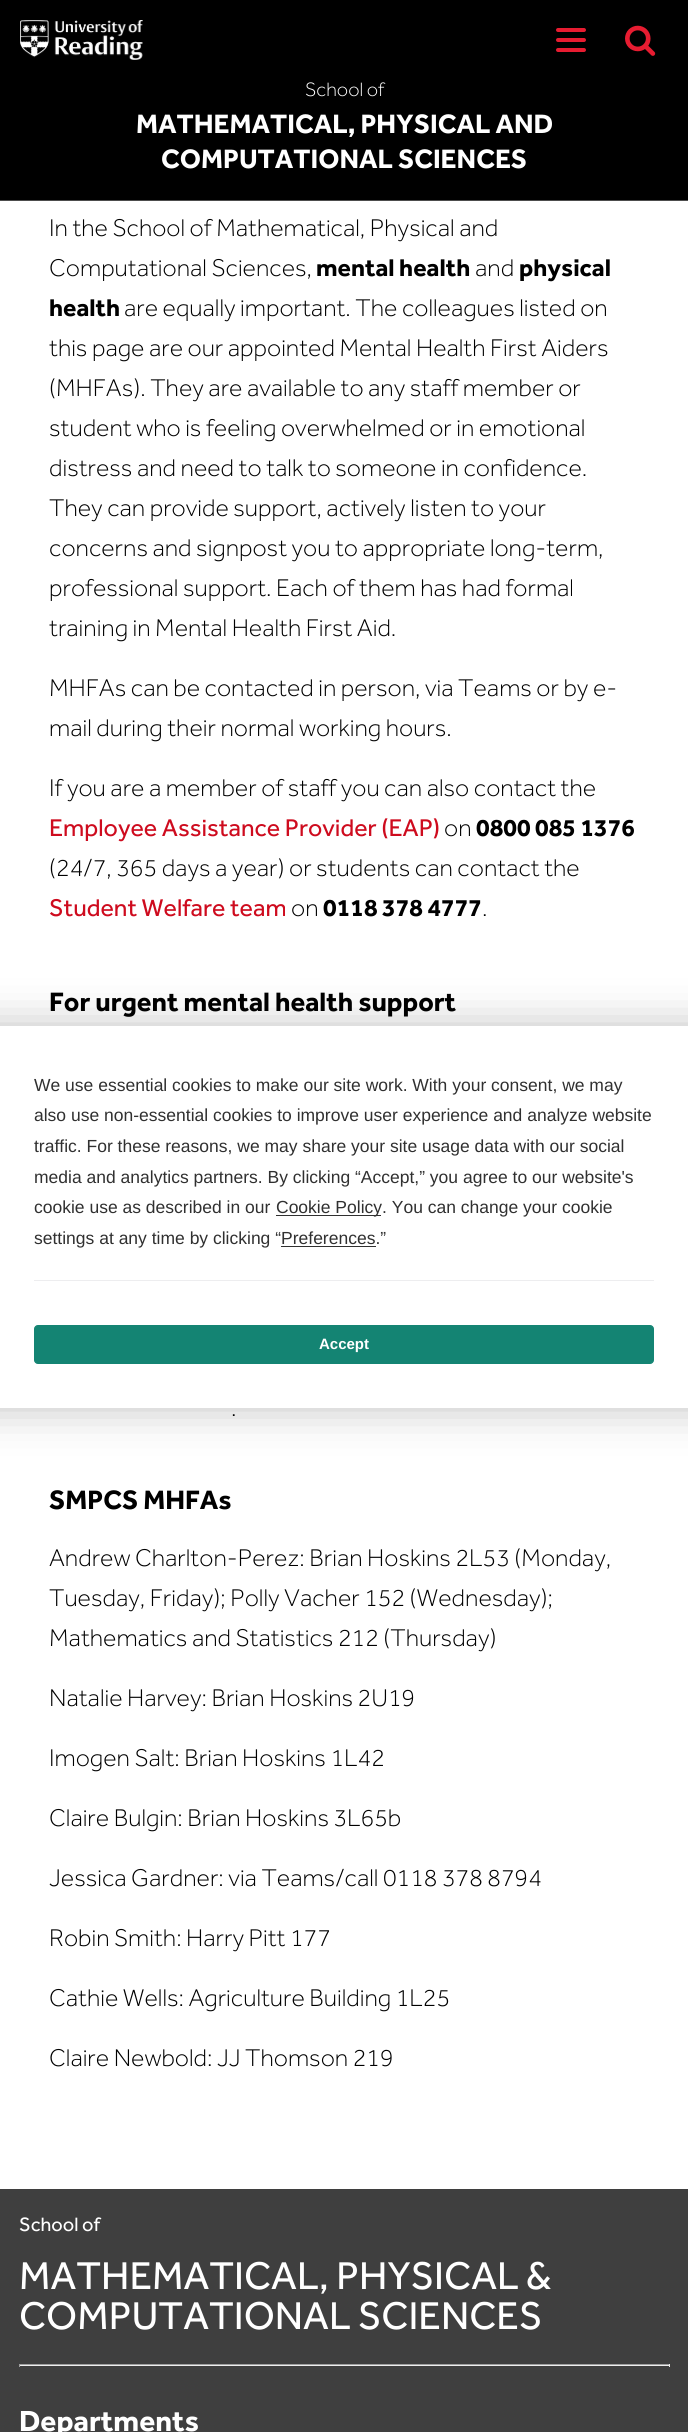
import math
import cairo

surface = cairo.ImageSurface(cairo.FORMAT_RGB24, 688, 2432)
ctx = cairo.Context(surface)
options = cairo.FontOptions()
options.set_hint_metrics(cairo.HINT_METRICS_OFF)
options.set_hint_style(cairo.HINT_STYLE_NONE)
ctx.set_font_options(options)
ctx.set_miter_limit(4)


def round_rect(x, y, w, h, r):
    ctx.new_sub_path()
    for i, (u, v) in enumerate([(x + w - r, y + h - r), (x + r, y + h - r), (x + r, y + r), (x + w - r, y + r)]):
        ctx.arc(u, v, r, i * math.pi / 2, (i + 1) * math.pi / 2)
    ctx.close_path()


def shadow(x, y, w, h, r, blur, alpha):
    ctx.push_group_with_content(cairo.CONTENT_ALPHA)
    ctx.set_operator(cairo.OPERATOR_SOURCE)
    for i in range(15, -16, -2):
        e = blur * i / 6
        if min(w, h) + 2 * e > 0:
            ctx.set_source_rgba(0, 0, 0, alpha * math.erfc((i - 1) / 8.5) / 2)
            round_rect(x - e, y - e, w + 2 * e, h + 2 * e, max(0, min(r + e + blur * .6, min(w, h) / 2 + e)))
            ctx.fill()
    ctx.mask(ctx.pop_group())


def picture(path, x, y, w, h):
    ctx.save()
    ctx.set_source_surface(cairo.ImageSurface.create_from_png(path), x, y)
    ctx.rectangle(x, y, w, h)
    ctx.fill()
    ctx.restore()


ctx.set_source_rgb(1, 1, 1)
ctx.paint()
ctx.set_source_rgb(0, 0, 0)
ctx.rectangle(0, 0, 688, 200)
ctx.fill()
ctx.set_source_rgb(0.302, 0.302, 0.302)
ctx.rectangle(0, 200, 688, 1)
ctx.fill()
picture("img1.png", 20, 20, 123, 40)
ctx.set_source_rgb(0.906, 0.11, 0.192)
round_rect(556, 28, 30, 4, 2)
ctx.fill()
round_rect(556, 38, 30, 4, 2)
ctx.fill()
round_rect(556, 48, 30, 4, 2)
ctx.fill()
picture("img2.png", 625, 25, 31, 31)
ctx.select_font_face("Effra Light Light")
ctx.set_font_size(20)
ctx.set_source_rgb(1, 1, 1)
ctx.move_to(305, 96)
ctx.show_text("School of")
ctx.select_font_face("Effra", cairo.FONT_SLANT_NORMAL, cairo.FONT_WEIGHT_BOLD)
ctx.set_font_size(27.5)
ctx.move_to(136, 133)
ctx.show_text("MATHEMATICAL, PHYSICAL AND")
ctx.move_to(161, 168)
ctx.show_text("COMPUTATIONAL SCIENCES")
ctx.select_font_face("Effra Light Light")
ctx.set_font_size(25)
ctx.set_source_rgb(0, 0, 0)
ctx.move_to(49, 236)
ctx.show_text("In the School of Mathematical, Physical and")
ctx.move_to(49, 276)
ctx.show_text("Computational Sciences,")
ctx.select_font_face("Effra", cairo.FONT_SLANT_NORMAL, cairo.FONT_WEIGHT_BOLD)
ctx.move_to(316, 276)
ctx.show_text("mental health")
ctx.select_font_face("Effra Light Light")
ctx.move_to(475, 276)
ctx.show_text("and")
ctx.select_font_face("Effra", cairo.FONT_SLANT_NORMAL, cairo.FONT_WEIGHT_BOLD)
ctx.move_to(519, 276)
ctx.show_text("physical")
ctx.move_to(49, 316)
ctx.show_text("health")
ctx.select_font_face("Effra Light Light")
ctx.move_to(124, 316)
ctx.show_text("are equally important. The colleagues listed on")
ctx.move_to(49, 356)
ctx.show_text("this page are our appointed Mental Health First Aiders")
ctx.move_to(49, 396)
ctx.show_text("(MHFAs). They are available to any staff member or")
ctx.move_to(49, 436)
ctx.show_text("student who is feeling overwhelmed or in emotional")
ctx.move_to(49, 476)
ctx.show_text("distress and need to talk to someone in confidence.")
ctx.move_to(49, 516)
ctx.show_text("They can provide support, actively listen to your")
ctx.move_to(49, 556)
ctx.show_text("concerns and signpost you to appropriate long-term,")
ctx.move_to(49, 596)
ctx.show_text("professional support. Each of them has had formal")
ctx.move_to(49, 636)
ctx.show_text("training in Mental Health First Aid.")
ctx.move_to(49, 696)
ctx.show_text("MHFAs can be contacted in person, via Teams or by e-")
ctx.move_to(49, 736)
ctx.show_text("mail during their normal working hours.")
ctx.move_to(49, 796)
ctx.show_text("If you are a member of staff you can also contact the")
ctx.select_font_face("Effra")
ctx.set_source_rgb(0.808, 0.043, 0.118)
ctx.move_to(49, 836)
ctx.show_text("Employee Assistance Provider (EAP)")
ctx.select_font_face("Effra Light Light")
ctx.set_source_rgb(0, 0, 0)
ctx.move_to(444, 836)
ctx.show_text("on")
ctx.select_font_face("Effra", cairo.FONT_SLANT_NORMAL, cairo.FONT_WEIGHT_BOLD)
ctx.move_to(476, 836)
ctx.show_text("0800 085 1376")
ctx.select_font_face("Effra Light Light")
ctx.move_to(49, 876)
ctx.show_text("(24/7, 365 days a year) or students can contact the")
ctx.select_font_face("Effra")
ctx.set_source_rgb(0.808, 0.043, 0.118)
ctx.move_to(49, 916)
ctx.show_text("Student Welfare team")
ctx.select_font_face("Effra Light Light")
ctx.set_source_rgb(0, 0, 0)
ctx.move_to(291, 916)
ctx.show_text("on")
ctx.select_font_face("Effra", cairo.FONT_SLANT_NORMAL, cairo.FONT_WEIGHT_BOLD)
ctx.move_to(323, 916)
ctx.show_text("0118 378 4777")
ctx.select_font_face("Effra Light Light")
ctx.move_to(482, 916)
ctx.show_text(".")
ctx.select_font_face("Effra", cairo.FONT_SLANT_NORMAL, cairo.FONT_WEIGHT_BOLD)
ctx.set_font_size(27.5)
ctx.move_to(49, 1011)
ctx.show_text("For urgent mental health support")
ctx.select_font_face("Effra Light Light")
ctx.set_font_size(25)
ctx.move_to(231, 1416)
ctx.show_text(".")
ctx.select_font_face("Effra", cairo.FONT_SLANT_NORMAL, cairo.FONT_WEIGHT_BOLD)
ctx.set_font_size(27.5)
ctx.move_to(49, 1509)
ctx.show_text("SMPCS MHFAs")
ctx.select_font_face("Effra Light Light")
ctx.set_font_size(25)
ctx.move_to(49, 1566)
ctx.show_text("Andrew Charlton-Perez: Brian Hoskins 2L53 (Monday,")
ctx.move_to(49, 1606)
ctx.show_text("Tuesday, Friday); Polly Vacher 152 (Wednesday);")
ctx.move_to(49, 1646)
ctx.show_text("Mathematics and Statistics 212 (Thursday)")
ctx.move_to(49, 1706)
ctx.show_text("Natalie Harvey: Brian Hoskins 2U19")
ctx.move_to(49, 1766)
ctx.show_text("Imogen Salt: Brian Hoskins 1L42")
ctx.move_to(49, 1826)
ctx.show_text("Claire Bulgin: Brian Hoskins 3L65b")
ctx.move_to(49, 1886)
ctx.show_text("Jessica Gardner: via Teams/call 0118 378 8794")
ctx.move_to(49, 1946)
ctx.show_text("Robin Smith: Harry Pitt 177")
ctx.move_to(49, 2006)
ctx.show_text("Cathie Wells: Agriculture Building 1L25")
ctx.move_to(49, 2066)
ctx.show_text("Claire Newbold: JJ Thomson 219")
ctx.set_source_rgb(0.247, 0.247, 0.247)
ctx.rectangle(0, 2189, 688, 243)
ctx.fill()
ctx.select_font_face("Effra")
ctx.set_font_size(20)
ctx.set_source_rgb(1, 1, 1)
ctx.move_to(19, 2231)
ctx.show_text("School of")
ctx.set_font_size(40)
ctx.move_to(19, 2289)
ctx.show_text("MATHEMATICAL, PHYSICAL &")
ctx.move_to(19, 2329)
ctx.show_text("COMPUTATIONAL SCIENCES")
ctx.set_source_rgb(0.624, 0.624, 0.624)
ctx.rectangle(19, 2364, 651, 1)
ctx.fill()
ctx.set_source_rgb(0.933, 0.933, 0.933)
ctx.rectangle(669, 2364, 1, 3)
ctx.fill()
ctx.rectangle(19, 2365, 651, 1)
ctx.fill()
ctx.set_source_rgb(0.624, 0.624, 0.624)
ctx.rectangle(19, 2364, 1, 3)
ctx.fill()
ctx.select_font_face("Effra", cairo.FONT_SLANT_NORMAL, cairo.FONT_WEIGHT_BOLD)
ctx.set_font_size(30)
ctx.set_source_rgb(1, 1, 1)
ctx.move_to(19, 2431)
ctx.show_text("Departments")
ctx.set_source_rgb(0, 0, 0)
shadow(-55, 1026, 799, 382, 6, 22, 0.25)
ctx.set_source_rgb(1, 1, 1)
ctx.rectangle(0, 1026, 688, 382)
ctx.fill()
ctx.select_font_face("Liberation Sans")
ctx.set_font_size(17.5)
ctx.set_source_rgb(0.188, 0.188, 0.188)
ctx.move_to(34, 1091)
ctx.show_text("We use essential cookies to make our site work. With your consent, we may")
ctx.move_to(34, 1121)
ctx.show_text("also use non-essential cookies to improve user experience and analyze website")
ctx.move_to(34, 1152)
ctx.show_text("traffic. For these reasons, we may share your site usage data with our social")
ctx.move_to(34, 1183)
ctx.show_text("media and analytics partners. By clicking “Accept,” you agree to our website's")
ctx.move_to(34, 1213)
ctx.show_text("cookie use as described in our")
ctx.rectangle(276, 1215, 105, 1)
ctx.fill()
ctx.move_to(276, 1213)
ctx.show_text("Cookie Policy. You can change your cookie")
ctx.move_to(34, 1244)
ctx.show_text("settings at any time by clicking “Preferences.”")
ctx.rectangle(281, 1246, 95, 1)
ctx.fill()
ctx.set_source_rgb(0.929, 0.929, 0.937)
ctx.rectangle(34, 1280, 620, 1)
ctx.fill()
ctx.set_source_rgb(0.082, 0.518, 0.451)
round_rect(34.5, 1325.5, 619, 38, 3.5)
ctx.fill_preserve()
ctx.set_line_width(1)
ctx.stroke()
ctx.select_font_face("Liberation Sans", cairo.FONT_SLANT_NORMAL, cairo.FONT_WEIGHT_BOLD)
ctx.set_font_size(15)
ctx.set_source_rgb(1, 1, 1)
ctx.move_to(319, 1349)
ctx.show_text("Accept")
surface.write_to_png("page.png")
